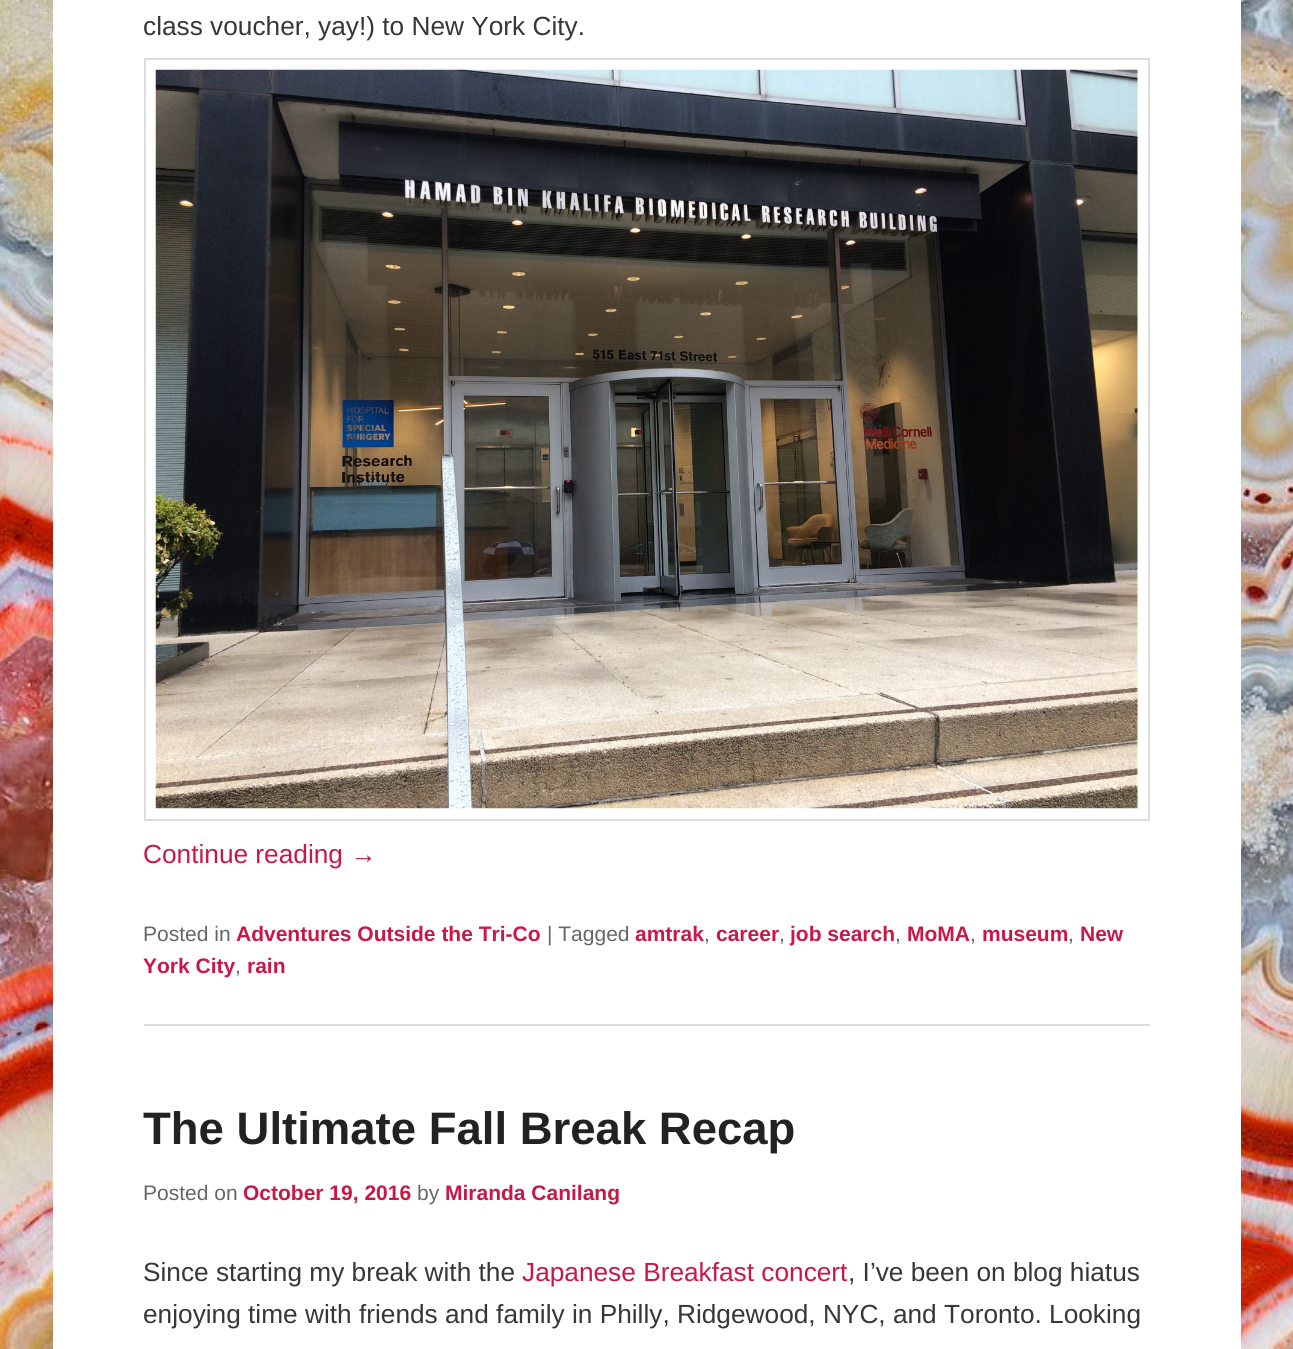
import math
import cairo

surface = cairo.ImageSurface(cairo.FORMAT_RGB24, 1293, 1349)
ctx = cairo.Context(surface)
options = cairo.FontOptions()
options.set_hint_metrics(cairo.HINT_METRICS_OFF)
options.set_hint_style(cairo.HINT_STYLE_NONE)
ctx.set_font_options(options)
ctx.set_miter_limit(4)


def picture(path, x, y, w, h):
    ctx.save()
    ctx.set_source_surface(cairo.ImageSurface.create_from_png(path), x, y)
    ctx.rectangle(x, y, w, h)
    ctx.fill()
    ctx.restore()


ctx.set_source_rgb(1, 1, 1)
ctx.paint()
picture("img1.png", 0, 0, 1293, 1349)
ctx.set_source_rgb(1, 1, 1)
ctx.rectangle(53, 0, 1188, 1349)
ctx.fill()
ctx.set_source_rgb(0.867, 0.867, 0.867)
ctx.rectangle(144, 1024, 1006, 2)
ctx.fill()
ctx.select_font_face("Liberation Sans")
ctx.set_font_size(26.25)
ctx.set_source_rgb(0.216, 0.216, 0.216)
ctx.move_to(143, 35)
ctx.show_text("class voucher, yay!) to New York City.")
ctx.rectangle(145, 59, 1004, 761)
ctx.set_source_rgb(0.867, 0.867, 0.867)
ctx.stroke()
picture("img2.png", 155, 69, 983, 740)
ctx.set_source_rgb(0.788, 0.094, 0.278)
ctx.move_to(143, 863)
ctx.show_text("Continue reading →")
ctx.set_font_size(21)
ctx.set_source_rgb(0.4, 0.4, 0.4)
ctx.move_to(143, 941)
ctx.show_text("Posted in")
ctx.select_font_face("Liberation Sans", cairo.FONT_SLANT_NORMAL, cairo.FONT_WEIGHT_BOLD)
ctx.set_source_rgb(0.788, 0.094, 0.278)
ctx.move_to(236, 941)
ctx.show_text("Adventures Outside the Tri-Co")
ctx.select_font_face("Liberation Sans")
ctx.set_source_rgb(0.4, 0.4, 0.4)
ctx.move_to(547, 941)
ctx.show_text("| Tagged")
ctx.select_font_face("Liberation Sans", cairo.FONT_SLANT_NORMAL, cairo.FONT_WEIGHT_BOLD)
ctx.set_source_rgb(0.788, 0.094, 0.278)
ctx.move_to(635, 941)
ctx.show_text("amtrak")
ctx.select_font_face("Liberation Sans")
ctx.set_source_rgb(0.4, 0.4, 0.4)
ctx.move_to(704, 941)
ctx.show_text(",")
ctx.select_font_face("Liberation Sans", cairo.FONT_SLANT_NORMAL, cairo.FONT_WEIGHT_BOLD)
ctx.set_source_rgb(0.788, 0.094, 0.278)
ctx.move_to(716, 941)
ctx.show_text("career")
ctx.select_font_face("Liberation Sans")
ctx.set_source_rgb(0.4, 0.4, 0.4)
ctx.move_to(779, 941)
ctx.show_text(",")
ctx.select_font_face("Liberation Sans", cairo.FONT_SLANT_NORMAL, cairo.FONT_WEIGHT_BOLD)
ctx.set_source_rgb(0.788, 0.094, 0.278)
ctx.move_to(790, 941)
ctx.show_text("job search")
ctx.select_font_face("Liberation Sans")
ctx.set_source_rgb(0.4, 0.4, 0.4)
ctx.move_to(895, 941)
ctx.show_text(",")
ctx.select_font_face("Liberation Sans", cairo.FONT_SLANT_NORMAL, cairo.FONT_WEIGHT_BOLD)
ctx.set_source_rgb(0.788, 0.094, 0.278)
ctx.move_to(907, 941)
ctx.show_text("MoMA")
ctx.select_font_face("Liberation Sans")
ctx.set_source_rgb(0.4, 0.4, 0.4)
ctx.move_to(970, 941)
ctx.show_text(",")
ctx.select_font_face("Liberation Sans", cairo.FONT_SLANT_NORMAL, cairo.FONT_WEIGHT_BOLD)
ctx.set_source_rgb(0.788, 0.094, 0.278)
ctx.move_to(982, 941)
ctx.show_text("museum")
ctx.select_font_face("Liberation Sans")
ctx.set_source_rgb(0.4, 0.4, 0.4)
ctx.move_to(1068, 941)
ctx.show_text(",")
ctx.select_font_face("Liberation Sans", cairo.FONT_SLANT_NORMAL, cairo.FONT_WEIGHT_BOLD)
ctx.set_source_rgb(0.788, 0.094, 0.278)
ctx.move_to(1080, 941)
ctx.show_text("New")
ctx.move_to(143, 973)
ctx.show_text("York City")
ctx.select_font_face("Liberation Sans")
ctx.set_source_rgb(0.4, 0.4, 0.4)
ctx.move_to(235, 973)
ctx.show_text(",")
ctx.select_font_face("Liberation Sans", cairo.FONT_SLANT_NORMAL, cairo.FONT_WEIGHT_BOLD)
ctx.set_source_rgb(0.788, 0.094, 0.278)
ctx.move_to(247, 973)
ctx.show_text("rain")
ctx.set_font_size(45.5)
ctx.set_source_rgb(0.133, 0.133, 0.133)
ctx.move_to(143, 1144)
ctx.show_text("The Ultimate Fall Break Recap")
ctx.select_font_face("Liberation Sans")
ctx.set_font_size(21)
ctx.set_source_rgb(0.4, 0.4, 0.4)
ctx.move_to(143, 1200)
ctx.show_text("Posted on")
ctx.select_font_face("Liberation Sans", cairo.FONT_SLANT_NORMAL, cairo.FONT_WEIGHT_BOLD)
ctx.set_source_rgb(0.788, 0.094, 0.278)
ctx.move_to(243, 1200)
ctx.show_text("October 19, 2016")
ctx.select_font_face("Liberation Sans")
ctx.set_source_rgb(0.4, 0.4, 0.4)
ctx.move_to(417, 1200)
ctx.show_text("by")
ctx.select_font_face("Liberation Sans", cairo.FONT_SLANT_NORMAL, cairo.FONT_WEIGHT_BOLD)
ctx.set_source_rgb(0.788, 0.094, 0.278)
ctx.move_to(445, 1200)
ctx.show_text("Miranda Canilang")
ctx.select_font_face("Liberation Sans")
ctx.set_font_size(26.25)
ctx.set_source_rgb(0.216, 0.216, 0.216)
ctx.move_to(143, 1281)
ctx.show_text("Since starting my break with the")
ctx.set_source_rgb(0.788, 0.094, 0.278)
ctx.move_to(522, 1281)
ctx.show_text("Japanese Breakfast concert")
ctx.set_source_rgb(0.216, 0.216, 0.216)
ctx.move_to(848, 1281)
ctx.show_text(", I’ve been on blog hiatus")
ctx.move_to(143, 1323)
ctx.show_text("enjoying time with friends and family in Philly, Ridgewood, NYC, and Toronto. Looking")
surface.write_to_png("page.png")
